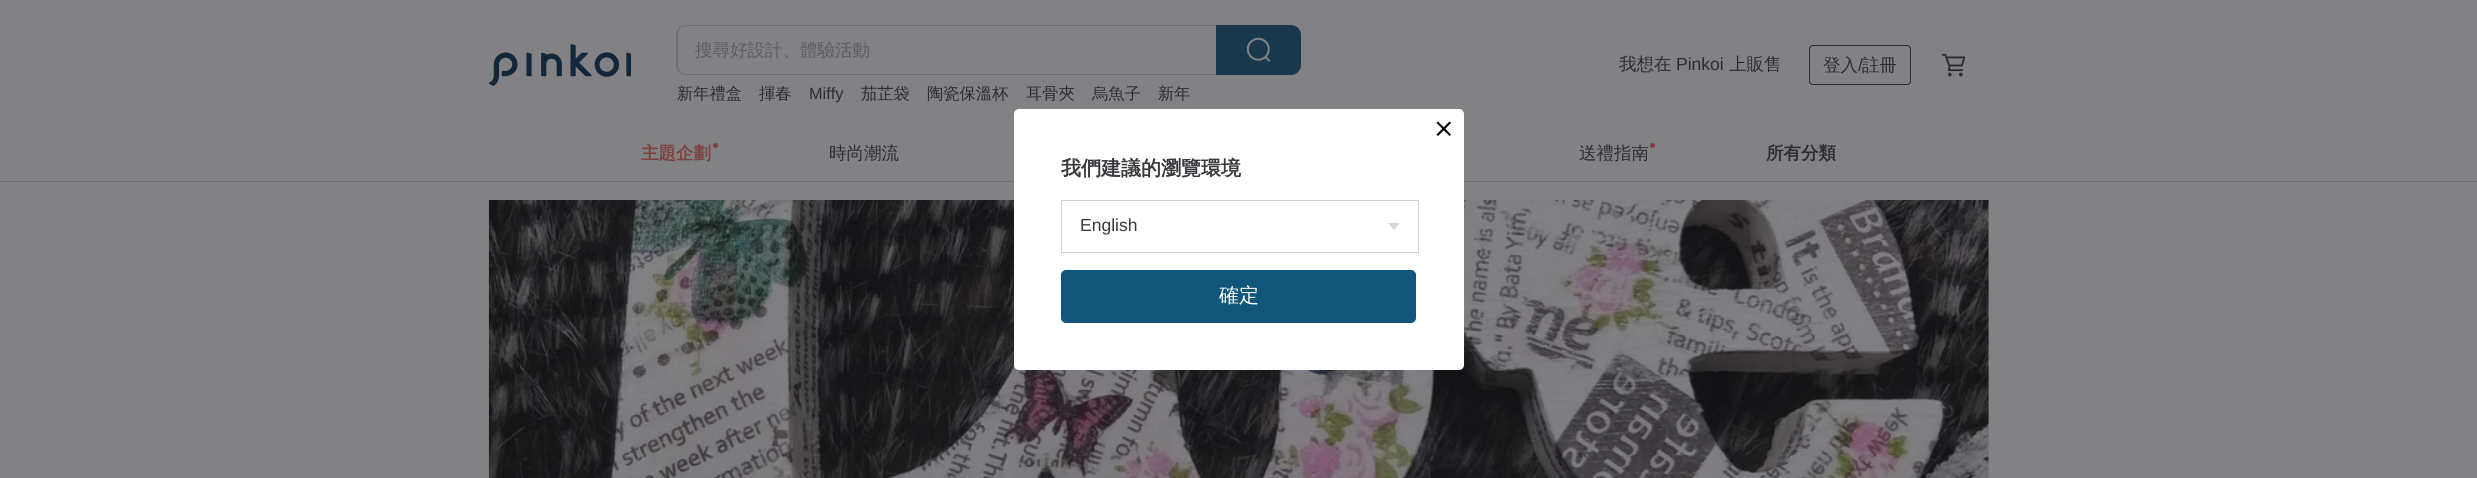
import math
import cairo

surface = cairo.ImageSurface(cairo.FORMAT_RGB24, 2477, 478)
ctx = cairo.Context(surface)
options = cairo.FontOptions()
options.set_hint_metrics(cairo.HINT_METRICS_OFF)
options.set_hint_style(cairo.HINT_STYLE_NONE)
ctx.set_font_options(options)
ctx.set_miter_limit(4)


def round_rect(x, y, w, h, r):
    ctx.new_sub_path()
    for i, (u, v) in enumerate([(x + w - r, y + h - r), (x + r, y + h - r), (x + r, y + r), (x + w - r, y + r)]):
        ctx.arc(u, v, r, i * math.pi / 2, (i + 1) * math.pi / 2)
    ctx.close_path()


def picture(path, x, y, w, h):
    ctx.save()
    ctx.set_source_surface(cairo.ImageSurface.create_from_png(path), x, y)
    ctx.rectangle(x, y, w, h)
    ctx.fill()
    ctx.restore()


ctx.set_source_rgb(0.51, 0.51, 0.522)
ctx.paint()
picture("img1.png", 489, 44, 142, 42)
ctx.set_source_rgb(0.435, 0.435, 0.451)
ctx.set_fill_rule(cairo.FILL_RULE_EVEN_ODD)
ctx.new_path()
ctx.move_to(686, 25)
ctx.line_to(1216, 25)
ctx.line_to(1216, 75)
ctx.line_to(686, 75)
ctx.curve_to(681, 75, 676, 71, 676, 65)
ctx.line_to(676, 35)
ctx.curve_to(676, 29, 681, 25, 686, 25)
ctx.close_path()
ctx.move_to(686, 26)
ctx.line_to(1216, 26)
ctx.line_to(1216, 74)
ctx.line_to(686, 74)
ctx.curve_to(681, 74, 678, 70, 678, 65)
ctx.line_to(678, 35)
ctx.curve_to(678, 30, 681, 26, 686, 26)
ctx.close_path()
ctx.fill()
ctx.select_font_face("WenQuanYi Zen Hei Medium")
ctx.set_font_size(17.5)
ctx.set_source_rgb(0.361, 0.361, 0.38)
ctx.move_to(695, 56)
ctx.show_text("搜尋好設計、體驗活動")
ctx.set_source_rgb(0.098, 0.22, 0.294)
ctx.new_path()
ctx.move_to(1216, 25)
ctx.line_to(1291, 25)
ctx.curve_to(1296.5, 25, 1301, 29.5, 1301, 35)
ctx.line_to(1301, 65)
ctx.curve_to(1301, 70.5, 1296.5, 75, 1291, 75)
ctx.line_to(1216, 75)
ctx.close_path()
ctx.fill()
picture("img2.png", 1246, 37, 25, 25)
ctx.set_font_size(16.25)
ctx.set_source_rgb(0.169, 0.169, 0.192)
ctx.move_to(677, 99)
ctx.show_text("新年禮盒")
ctx.move_to(759, 99)
ctx.show_text("揮春")
ctx.select_font_face("Liberation Sans")
ctx.move_to(809, 99)
ctx.show_text("Miffy")
ctx.select_font_face("WenQuanYi Zen Hei Medium")
ctx.move_to(861, 99)
ctx.show_text("茄芷袋")
ctx.move_to(927, 99)
ctx.show_text("陶瓷保溫杯")
ctx.move_to(1026, 99)
ctx.show_text("耳骨夾")
ctx.move_to(1092, 99)
ctx.show_text("烏魚子")
ctx.move_to(1158, 99)
ctx.show_text("新年")
ctx.set_font_size(17.5)
ctx.move_to(1619, 70)
ctx.show_text("我想在")
ctx.select_font_face("Liberation Sans")
ctx.move_to(1676, 70)
ctx.show_text("Pinkoi")
ctx.select_font_face("WenQuanYi Zen Hei Medium")
ctx.move_to(1729, 70)
ctx.show_text("上販售")
round_rect(1809.5, 45.5, 101, 39, 3.5)
ctx.set_line_width(1)
ctx.stroke()
ctx.move_to(1823, 71)
ctx.show_text("登入")
ctx.select_font_face("Liberation Sans")
ctx.move_to(1858, 71)
ctx.show_text("/")
ctx.select_font_face("WenQuanYi Zen Hei Medium")
ctx.move_to(1862, 71)
ctx.show_text("註冊")
picture("img3.png", 1942, 53, 24, 24)
ctx.set_source_rgb(0.435, 0.435, 0.451)
ctx.rectangle(0, 181, 2477, 1)
ctx.fill()
ctx.select_font_face("WenQuanYi Zen Hei", cairo.FONT_SLANT_NORMAL, cairo.FONT_WEIGHT_BOLD)
ctx.set_source_rgb(0.486, 0.255, 0.243)
ctx.move_to(641, 159)
ctx.show_text("主題企劃")
ctx.new_path()
ctx.arc(715.5, 145.5, 2.5, 0, 2 * math.pi)
ctx.fill()
ctx.select_font_face("WenQuanYi Zen Hei Medium")
ctx.set_source_rgb(0.169, 0.169, 0.192)
ctx.move_to(829, 159)
ctx.show_text("時尚潮流")
ctx.move_to(1579, 159)
ctx.show_text("送禮指南")
ctx.set_source_rgb(0.486, 0.255, 0.243)
ctx.new_path()
ctx.arc(1652.5, 145.5, 2.5, 0, 2 * math.pi)
ctx.fill()
ctx.select_font_face("WenQuanYi Zen Hei", cairo.FONT_SLANT_NORMAL, cairo.FONT_WEIGHT_BOLD)
ctx.set_source_rgb(0.169, 0.169, 0.192)
ctx.move_to(1766, 159)
ctx.show_text("所有分類")
picture("img5.png", 488, 200, 1501, 278)
ctx.set_source_rgb(1, 1, 1)
round_rect(1014, 109, 450, 261, 5)
ctx.fill()
picture("img4.png", 1436, 121, 15, 15)
ctx.set_font_size(20)
ctx.set_source_rgb(0.224, 0.224, 0.243)
ctx.move_to(1061, 175)
ctx.show_text("我們建議的瀏覽環境")
ctx.rectangle(1061.5, 200.5, 357, 52)
ctx.set_source_rgb(0.827, 0.827, 0.835)
ctx.stroke()
ctx.save()
ctx.set_fill_rule(cairo.FILL_RULE_WINDING)
ctx.rectangle(1388, 223, 12, 7)
ctx.clip()
ctx.set_fill_rule(cairo.FILL_RULE_EVEN_ODD)
ctx.new_path()
ctx.move_to(1387.5, 222.5)
ctx.line_to(1400, 222.5)
ctx.line_to(1394, 230)
ctx.close_path()
ctx.fill()
ctx.restore()
ctx.select_font_face("Liberation Sans")
ctx.set_font_size(17.5)
ctx.set_source_rgb(0.224, 0.224, 0.243)
ctx.move_to(1080, 231)
ctx.show_text("English")
ctx.set_source_rgb(0.063, 0.337, 0.482)
round_rect(1061.5, 270.5, 354, 52, 4.5)
ctx.fill_preserve()
ctx.stroke()
ctx.select_font_face("WenQuanYi Zen Hei Medium")
ctx.set_font_size(20)
ctx.set_source_rgb(1, 1, 1)
ctx.move_to(1219, 302)
ctx.show_text("確定")
surface.write_to_png("page.png")
